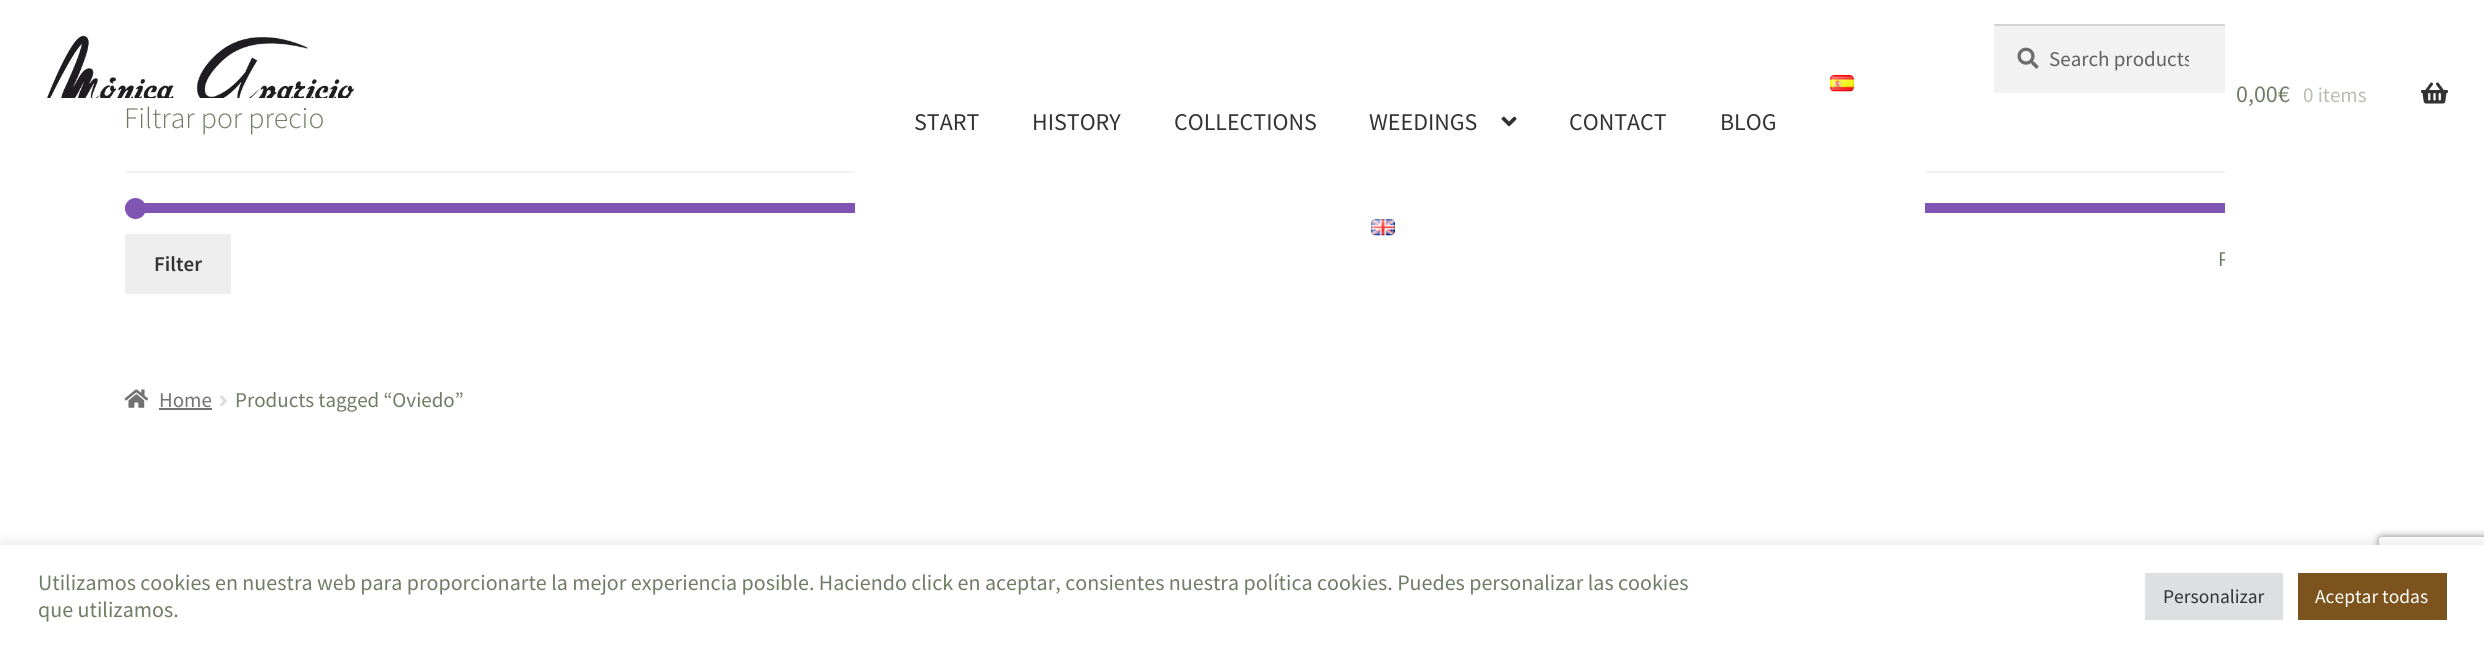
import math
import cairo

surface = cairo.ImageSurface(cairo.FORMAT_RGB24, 2484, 648)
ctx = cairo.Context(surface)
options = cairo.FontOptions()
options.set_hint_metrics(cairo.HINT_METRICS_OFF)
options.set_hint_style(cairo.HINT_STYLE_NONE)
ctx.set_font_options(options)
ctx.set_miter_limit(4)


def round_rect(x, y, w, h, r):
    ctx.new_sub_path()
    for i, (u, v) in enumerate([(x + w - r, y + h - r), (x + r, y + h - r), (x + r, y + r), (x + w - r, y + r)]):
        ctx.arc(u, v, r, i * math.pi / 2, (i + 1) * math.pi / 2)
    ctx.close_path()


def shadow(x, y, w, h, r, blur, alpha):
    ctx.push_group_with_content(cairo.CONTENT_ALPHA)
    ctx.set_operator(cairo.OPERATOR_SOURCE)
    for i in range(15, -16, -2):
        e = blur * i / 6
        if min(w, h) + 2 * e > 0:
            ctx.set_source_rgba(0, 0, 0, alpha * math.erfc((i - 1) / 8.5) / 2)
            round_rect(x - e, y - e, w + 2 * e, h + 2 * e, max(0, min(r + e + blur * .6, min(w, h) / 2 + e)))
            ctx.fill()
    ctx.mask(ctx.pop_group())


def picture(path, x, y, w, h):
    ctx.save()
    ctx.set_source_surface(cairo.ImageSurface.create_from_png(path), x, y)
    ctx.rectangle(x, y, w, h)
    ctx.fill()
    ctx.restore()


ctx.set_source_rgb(1, 1, 1)
ctx.paint()
picture("img1.png", 47, 35, 307, 63)
ctx.set_source_rgb(0.949, 0.949, 0.949)
ctx.rectangle(1994, 26, 231, 67)
ctx.fill()
picture("img2.png", 2017, 47, 22, 22)
ctx.set_source_rgb(0.831, 0.831, 0.831)
ctx.rectangle(1994, 24, 231, 2)
ctx.fill()
ctx.save()
ctx.rectangle(2049, 45, 140, 27)
ctx.clip()
ctx.select_font_face("Source Sans Pro")
ctx.set_font_size(21)
ctx.set_source_rgb(0.38, 0.38, 0.38)
ctx.move_to(2049, 66)
ctx.show_text("Search products")
ctx.restore()
ctx.set_source_rgb(0.498, 0.329, 0.702)
round_rect(125, 203, 2235, 10, 5)
ctx.fill()
ctx.select_font_face("Source Sans Pro")
ctx.set_font_size(21)
ctx.set_source_rgb(0.439, 0.49, 0.396)
ctx.move_to(2218, 266)
ctx.show_text("P")
ctx.set_source_rgb(1, 1, 1)
ctx.rectangle(2225, 203, 135, 58)
ctx.fill()
ctx.set_font_size(24)
ctx.set_source_rgb(0.439, 0.49, 0.396)
ctx.move_to(2236, 102)
ctx.show_text("0,00€")
ctx.set_font_size(21)
ctx.set_source_rgb(0.722, 0.745, 0.698)
ctx.move_to(2303, 102)
ctx.show_text("0 items")
picture("img3.png", 2421, 82, 27, 22)
ctx.set_source_rgb(0.949, 0.949, 0.949)
ctx.rectangle(125, 171, 2100, 2)
ctx.fill()
ctx.set_source_rgb(1, 1, 1)
ctx.rectangle(855, 171, 1070, 42)
ctx.fill()
picture("img4.png", 1830, 75, 24, 17)
ctx.set_font_size(24)
ctx.set_source_rgb(0.2, 0.2, 0.2)
ctx.move_to(914, 130)
ctx.show_text("START")
ctx.move_to(1032, 130)
ctx.show_text("HISTORY")
ctx.move_to(1174, 130)
ctx.show_text("COLLECTIONS")
ctx.move_to(1369, 130)
ctx.show_text("WEEDINGS")
picture("img5.png", 1501, 116, 16, 11)
ctx.move_to(1569, 130)
ctx.show_text("CONTACT")
ctx.move_to(1720, 130)
ctx.show_text("BLOG")
picture("img6.png", 1371, 219, 24, 17)
ctx.select_font_face("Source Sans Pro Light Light")
ctx.set_font_size(29.75)
ctx.set_source_rgb(0.439, 0.49, 0.396)
ctx.move_to(124, 128)
ctx.show_text("Filtrar por precio")
ctx.set_source_rgb(0.498, 0.329, 0.702)
ctx.new_path()
ctx.arc(135.5, 208.5, 10.5, 0, 2 * math.pi)
ctx.fill()
ctx.set_source_rgb(0.933, 0.933, 0.933)
ctx.rectangle(125, 234, 106, 60)
ctx.fill()
ctx.select_font_face("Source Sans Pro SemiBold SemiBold")
ctx.set_font_size(21)
ctx.set_source_rgb(0.2, 0.2, 0.2)
ctx.move_to(154, 271)
ctx.show_text("Filter")
picture("img7.png", 124, 389, 25, 19)
ctx.select_font_face("Source Sans Pro")
ctx.set_source_rgb(0.447, 0.447, 0.447)
ctx.move_to(159, 407)
ctx.show_text("Home")
ctx.rectangle(159, 408, 53, 2)
ctx.fill()
picture("img8.png", 219, 395, 8, 12)
ctx.set_source_rgb(0.439, 0.49, 0.396)
ctx.move_to(235, 407)
ctx.show_text("Products tagged “Oviedo”")
ctx.save()
ctx.set_fill_rule(cairo.FILL_RULE_EVEN_ODD)
ctx.new_path()
ctx.move_to(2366, 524)
ctx.line_to(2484, 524)
ctx.line_to(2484, 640)
ctx.line_to(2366, 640)
ctx.close_path()
ctx.move_to(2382, 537)
ctx.line_to(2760, 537)
ctx.curve_to(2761.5, 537, 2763, 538.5, 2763, 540)
ctx.line_to(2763, 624)
ctx.curve_to(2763, 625.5, 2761.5, 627, 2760, 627)
ctx.line_to(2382, 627)
ctx.curve_to(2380.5, 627, 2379, 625.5, 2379, 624)
ctx.line_to(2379, 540)
ctx.curve_to(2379, 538.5, 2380.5, 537, 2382, 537)
ctx.close_path()
ctx.clip()
ctx.set_source_rgb(0.502, 0.502, 0.502)
shadow(2379, 537, 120, 90, 3, 4, 1)
ctx.restore()
ctx.set_source_rgb(0.675, 0.671, 0.671)
shadow(0, 543, 2484, 104, 0, 7.5, 0.3)
ctx.set_source_rgb(1, 1, 1)
ctx.rectangle(0, 545, 2484, 103)
ctx.fill()
ctx.set_font_size(22)
ctx.set_source_rgb(0.439, 0.49, 0.396)
ctx.move_to(38, 590)
ctx.show_text("Utilizamos cookies en nuestra web para proporcionarte la mejor experiencia posible. Haciendo click en aceptar, consientes nuestra política cookies. Puedes personalizar las cookies")
ctx.move_to(38, 617)
ctx.show_text("que utilizamos.")
ctx.set_source_rgb(0.871, 0.875, 0.878)
ctx.rectangle(2145, 573, 138, 47)
ctx.fill()
ctx.set_font_size(19.5)
ctx.set_source_rgb(0.2, 0.2, 0.2)
ctx.move_to(2163, 603)
ctx.show_text("Personalizar")
ctx.set_source_rgb(0.486, 0.325, 0.11)
ctx.rectangle(2298, 573, 149, 47)
ctx.fill()
ctx.set_source_rgb(1, 1, 1)
ctx.move_to(2315, 603)
ctx.show_text("Aceptar todas")
surface.write_to_png("page.png")
